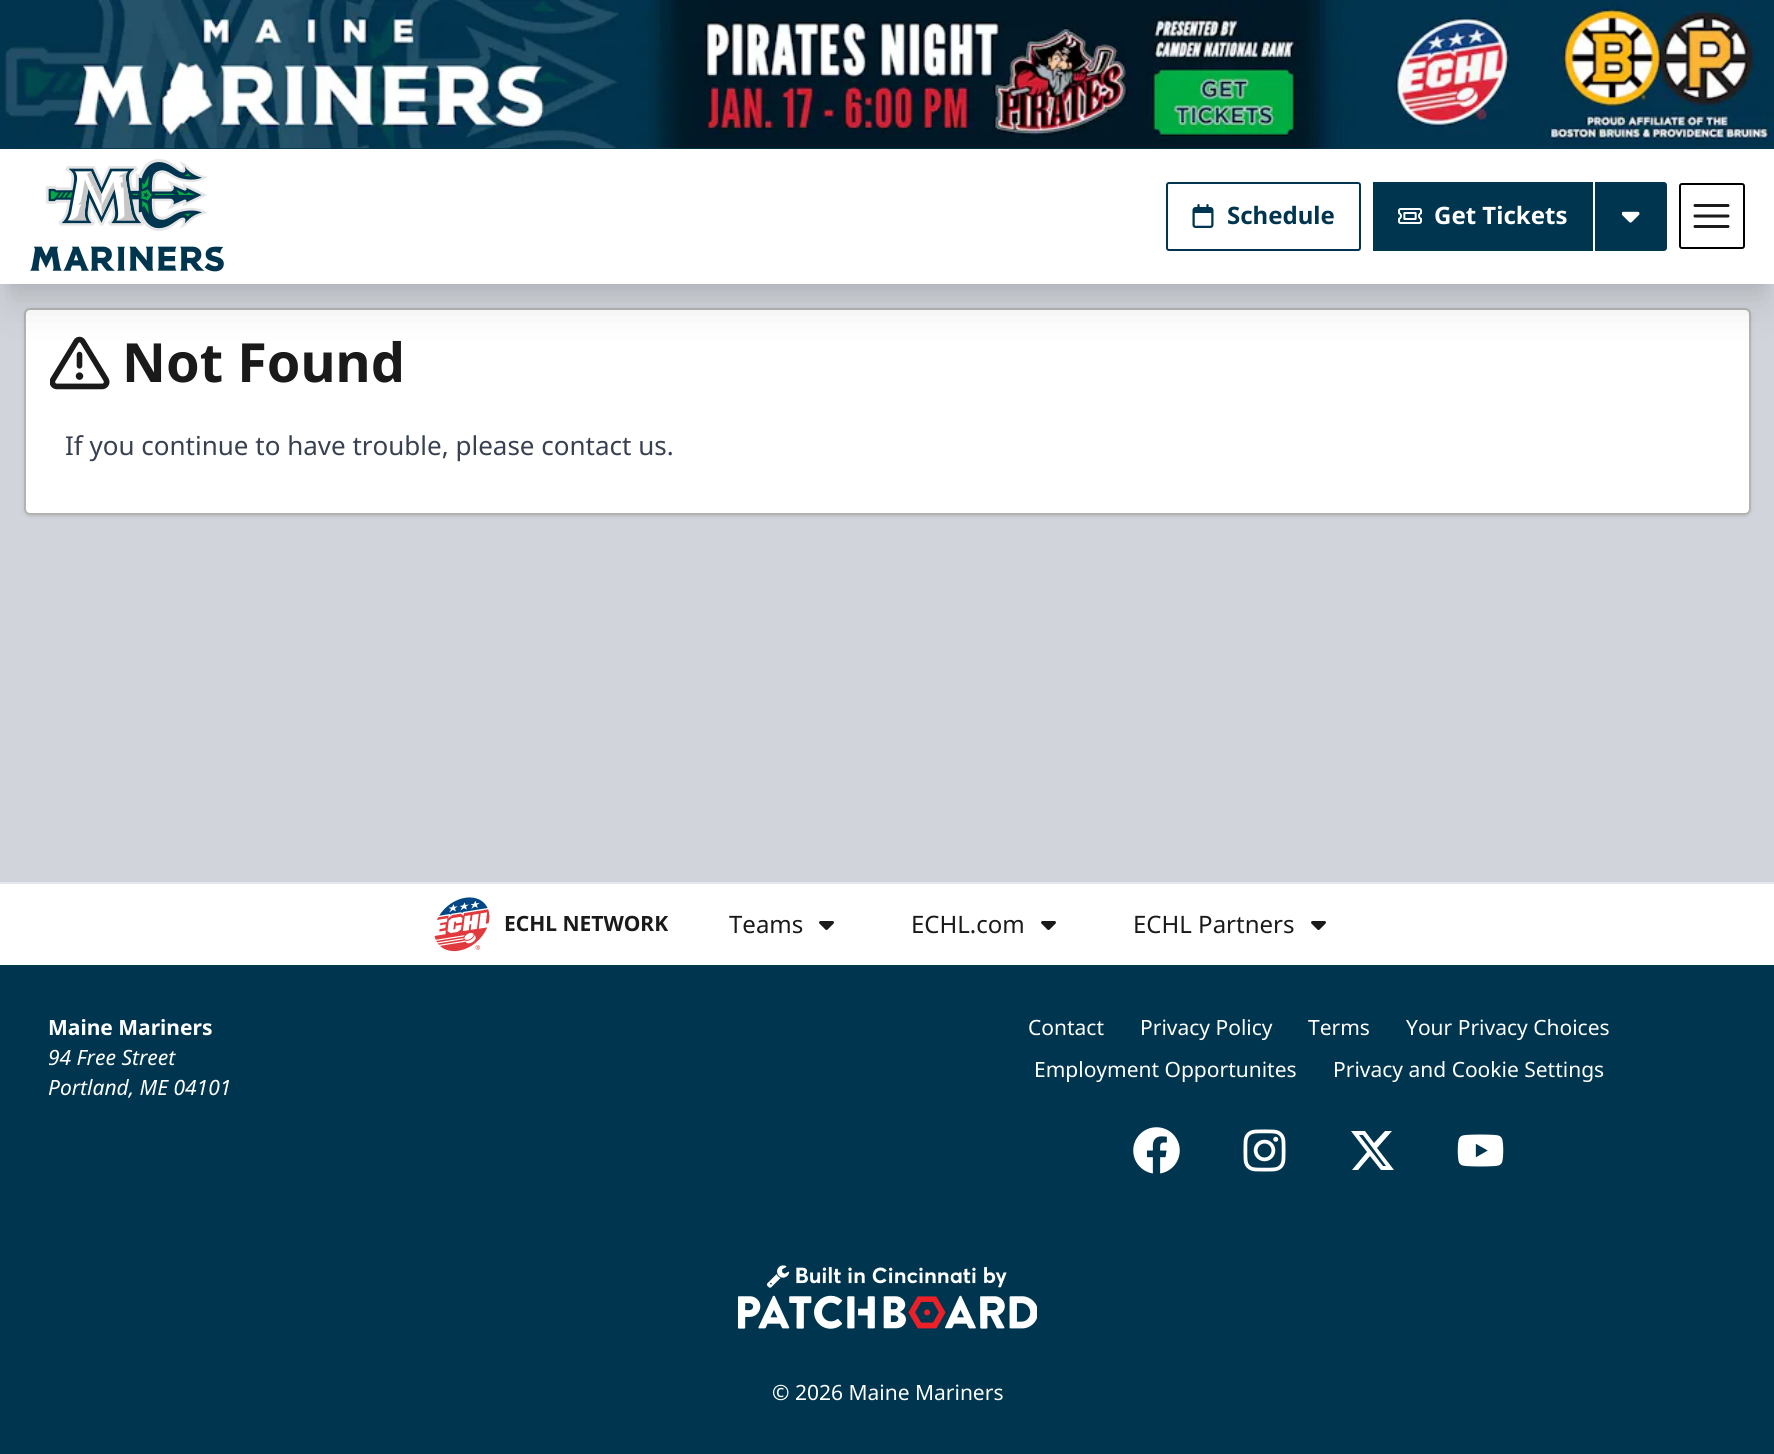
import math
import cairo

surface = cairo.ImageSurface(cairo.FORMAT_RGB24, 1774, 1454)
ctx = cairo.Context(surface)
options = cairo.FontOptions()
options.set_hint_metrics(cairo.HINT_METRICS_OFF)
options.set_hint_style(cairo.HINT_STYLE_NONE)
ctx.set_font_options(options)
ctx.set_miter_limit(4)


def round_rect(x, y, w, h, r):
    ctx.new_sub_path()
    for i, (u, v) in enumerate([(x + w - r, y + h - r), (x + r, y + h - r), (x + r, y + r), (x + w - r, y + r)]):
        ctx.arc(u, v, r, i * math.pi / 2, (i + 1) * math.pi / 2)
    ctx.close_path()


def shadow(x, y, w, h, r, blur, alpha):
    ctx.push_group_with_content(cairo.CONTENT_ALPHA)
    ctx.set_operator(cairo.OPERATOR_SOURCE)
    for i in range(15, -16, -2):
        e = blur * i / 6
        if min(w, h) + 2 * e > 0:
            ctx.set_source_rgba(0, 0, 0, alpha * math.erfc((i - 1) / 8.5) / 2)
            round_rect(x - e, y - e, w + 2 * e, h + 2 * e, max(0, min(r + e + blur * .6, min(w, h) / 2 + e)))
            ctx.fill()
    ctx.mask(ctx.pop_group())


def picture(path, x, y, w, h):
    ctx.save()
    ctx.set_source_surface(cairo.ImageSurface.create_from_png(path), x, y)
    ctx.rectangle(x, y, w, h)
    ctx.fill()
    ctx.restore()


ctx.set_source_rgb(0.82, 0.835, 0.859)
ctx.paint()
ctx.set_source_rgb(0, 0.208, 0.31)
ctx.rectangle(0, 0, 1774, 149)
ctx.fill()
picture("img1.png", 5, 0, 1769, 149)
ctx.set_source_rgb(0, 0, 0)
shadow(26, 311, 1723, 204, 5, 1.5, 0.1)
shadow(24, 309, 1727, 207, 6, 2, 0.1)
ctx.set_source_rgb(1, 1, 1)
round_rect(24, 308, 1727, 207, 6)
ctx.fill()
round_rect(25, 309, 1725, 205, 5)
ctx.set_source_rgba(0, 0, 0, 0.3)
ctx.stroke()
ctx.set_source_rgb(0, 0, 0)
shadow(9, 170, 1757, 117, 0, 7.5, 0.1)
picture("img6.png", 50, 336, 60, 54)
shadow(8, 186, 1759, 120, 0, 19, 0.1)
ctx.set_source_rgb(1, 1, 1)
ctx.rectangle(0, 149, 1774, 135)
ctx.fill()
picture("img2.png", 30, 159, 194, 113)
round_rect(1167, 183, 193, 67, 2)
ctx.set_source_rgb(0, 0.208, 0.31)
ctx.stroke()
picture("img3.png", 1192, 204, 22, 24)
ctx.select_font_face("Noto Sans", cairo.FONT_SLANT_NORMAL, cairo.FONT_WEIGHT_BOLD)
ctx.set_font_size(24)
ctx.move_to(1227, 224)
ctx.show_text("Schedule")
ctx.rectangle(1373, 182, 220, 69)
ctx.fill()
picture("img4.png", 1398, 208, 24, 16)
ctx.set_source_rgb(1, 1, 1)
ctx.move_to(1434, 224)
ctx.show_text("Get Tickets")
ctx.set_source_rgb(0, 0.208, 0.31)
ctx.new_path()
ctx.move_to(1596, 183)
ctx.line_to(1664, 183)
ctx.curve_to(1665, 183, 1666, 184, 1666, 185)
ctx.line_to(1666, 248)
ctx.curve_to(1666, 249, 1665, 250, 1664, 250)
ctx.line_to(1596, 250)
ctx.close_path()
ctx.fill_preserve()
ctx.stroke()
picture("img5.png", 1622, 211, 18, 12)
round_rect(1680, 184, 64, 64, 2)
ctx.set_source_rgb(0, 0, 0)
ctx.stroke()
ctx.new_path()
ctx.move_to(1695, 205.5)
ctx.line_to(1728, 205.5)
ctx.move_to(1695, 216)
ctx.line_to(1728, 216)
ctx.move_to(1695, 226.5)
ctx.line_to(1728, 226.5)
ctx.set_source_rgb(0.102, 0.102, 0.102)
ctx.set_line_width(3)
ctx.set_line_cap(cairo.LINE_CAP_ROUND)
ctx.set_line_join(cairo.LINE_JOIN_ROUND)
ctx.stroke()
ctx.set_font_size(54)
ctx.move_to(122, 382)
ctx.show_text("Not Found")
ctx.select_font_face("Noto Sans")
ctx.set_font_size(26)
ctx.set_source_rgb(0.216, 0.255, 0.318)
ctx.move_to(65, 455)
ctx.show_text("If you continue to have trouble, please contact us.")
ctx.set_source_rgb(1, 1, 1)
ctx.rectangle(0, 884, 1774, 81)
ctx.fill()
ctx.set_source_rgb(0.898, 0.906, 0.922)
ctx.rectangle(0, 882, 1774, 2)
ctx.fill()
picture("img7.png", 434, 897, 56, 55)
ctx.select_font_face("Noto Sans", cairo.FONT_SLANT_NORMAL, cairo.FONT_WEIGHT_BOLD)
ctx.set_font_size(21)
ctx.set_source_rgb(0.102, 0.102, 0.102)
ctx.move_to(504, 931)
ctx.show_text("ECHL NETWORK")
ctx.select_font_face("Noto Sans")
ctx.set_font_size(24)
ctx.move_to(729, 933)
ctx.show_text("Teams")
picture("img8.png", 819, 921, 15, 9)
ctx.move_to(911, 933)
ctx.show_text("ECHL.com")
picture("img8.png", 1041, 921, 15, 9)
ctx.move_to(1133, 933)
ctx.show_text("ECHL Partners")
picture("img8.png", 1311, 921, 15, 9)
ctx.set_source_rgb(0, 0.208, 0.31)
ctx.rectangle(0, 965, 1774, 489)
ctx.fill()
ctx.select_font_face("Noto Sans", cairo.FONT_SLANT_NORMAL, cairo.FONT_WEIGHT_BOLD)
ctx.set_font_size(21)
ctx.set_source_rgb(1, 1, 1)
ctx.move_to(48, 1035)
ctx.show_text("Maine Mariners")
ctx.select_font_face("Noto Sans", cairo.FONT_SLANT_ITALIC)
ctx.move_to(48, 1065)
ctx.show_text("94 Free Street")
ctx.move_to(48, 1095)
ctx.show_text("Portland, ME 04101")
ctx.select_font_face("Noto Sans")
ctx.move_to(1028, 1035)
ctx.show_text("Contact")
ctx.move_to(1140, 1035)
ctx.show_text("Privacy Policy")
ctx.move_to(1308, 1035)
ctx.show_text("Terms")
ctx.move_to(1406, 1035)
ctx.show_text("Your Privacy Choices")
ctx.move_to(1034, 1077)
ctx.show_text("Employment Opportunites")
ctx.move_to(1333, 1077)
ctx.show_text("Privacy and Cookie Settings")
picture("img9.png", 1133, 1127, 47, 47)
picture("img10.png", 1243, 1129, 43, 43)
ctx.new_path()
ctx.move_to(1385, 1131)
ctx.line_to(1392, 1131)
ctx.line_to(1377, 1148)
ctx.line_to(1394, 1170)
ctx.line_to(1381, 1170)
ctx.line_to(1370, 1156)
ctx.line_to(1358, 1170)
ctx.line_to(1352, 1170)
ctx.line_to(1367, 1152)
ctx.line_to(1351, 1131)
ctx.line_to(1365, 1131)
ctx.line_to(1374, 1143)
ctx.close_path()
ctx.move_to(1383, 1166)
ctx.line_to(1386, 1166)
ctx.line_to(1363, 1135)
ctx.line_to(1359, 1135)
ctx.close_path()
ctx.fill()
picture("img11.png", 1457, 1134, 47, 33)
picture("img12.png", 738, 1265, 299, 64)
ctx.move_to(772, 1400)
ctx.show_text("© 2026 Maine Mariners")
surface.write_to_png("page.png")
